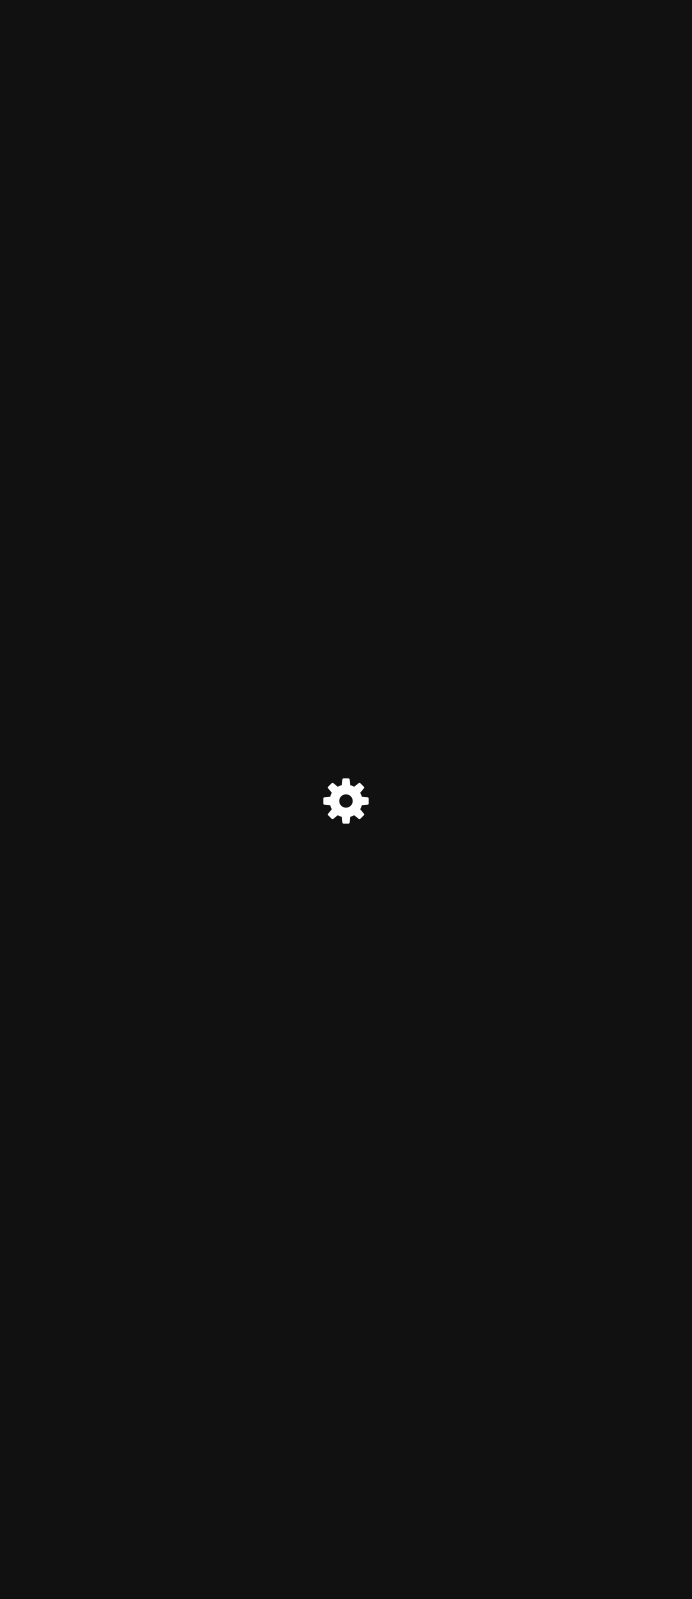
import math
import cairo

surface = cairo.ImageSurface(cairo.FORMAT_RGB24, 692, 1599)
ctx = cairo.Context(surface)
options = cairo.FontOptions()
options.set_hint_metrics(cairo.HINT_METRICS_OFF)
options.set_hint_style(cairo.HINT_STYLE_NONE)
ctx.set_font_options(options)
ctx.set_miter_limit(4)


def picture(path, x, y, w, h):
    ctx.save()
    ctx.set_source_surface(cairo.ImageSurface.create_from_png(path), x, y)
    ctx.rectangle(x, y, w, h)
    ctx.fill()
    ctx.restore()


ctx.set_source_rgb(0.067, 0.067, 0.067)
ctx.paint()
picture("img1.png", 323, 778, 46, 46)
surface.write_to_png("page.png")
